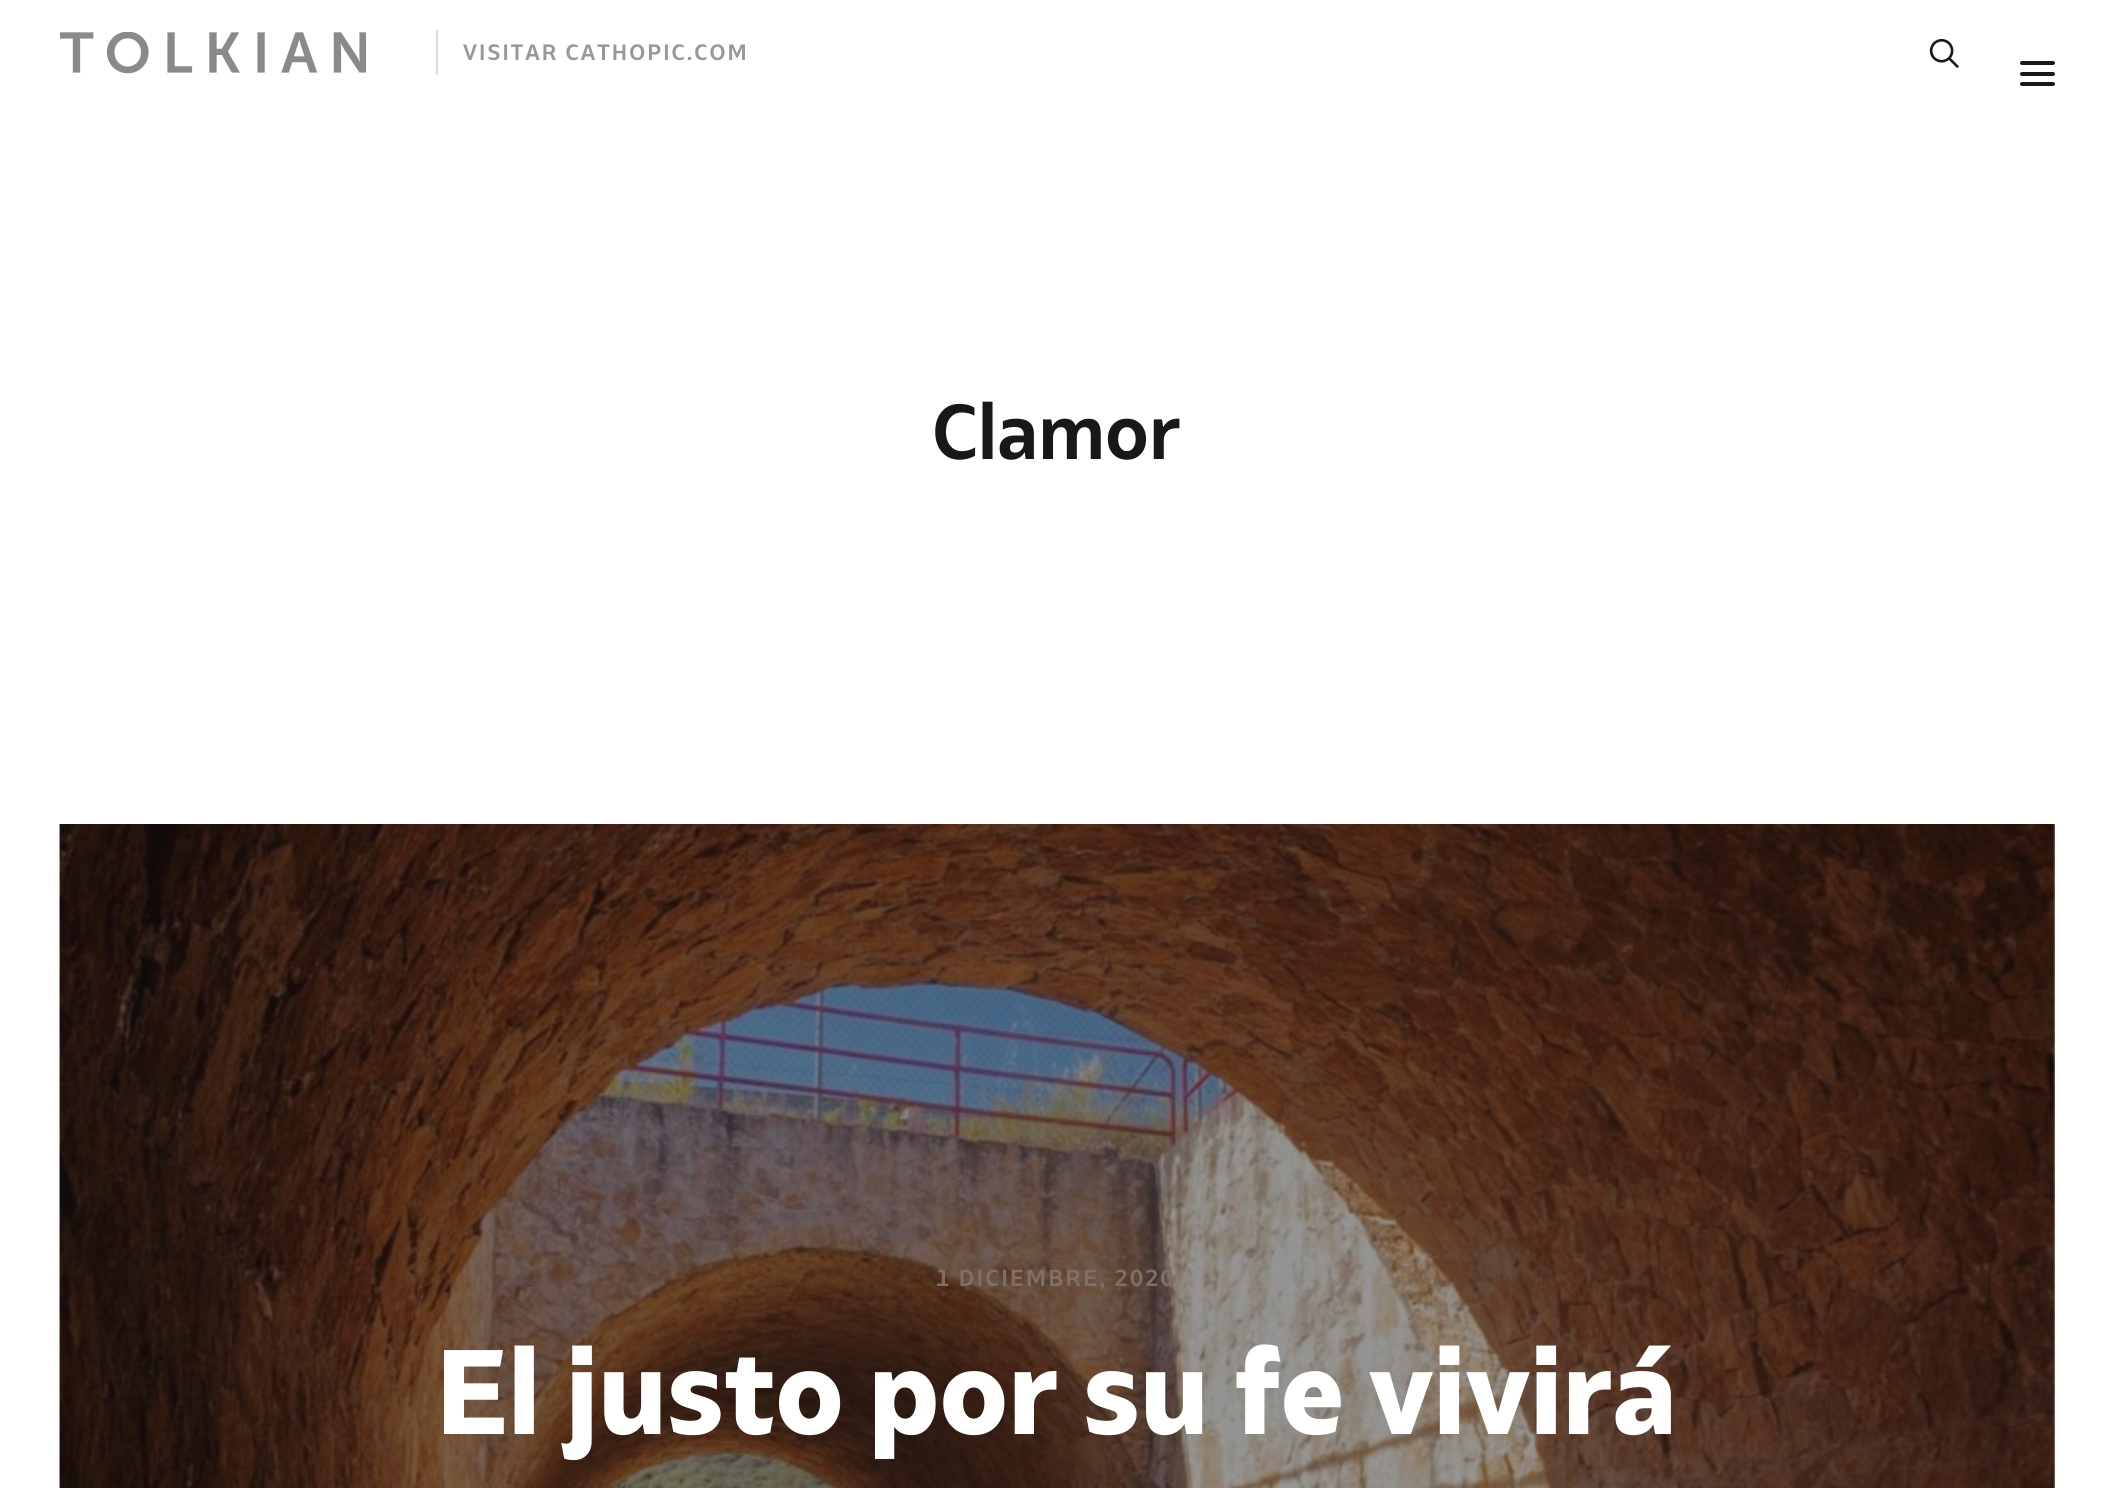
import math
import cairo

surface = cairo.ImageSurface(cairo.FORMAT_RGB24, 2111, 1488)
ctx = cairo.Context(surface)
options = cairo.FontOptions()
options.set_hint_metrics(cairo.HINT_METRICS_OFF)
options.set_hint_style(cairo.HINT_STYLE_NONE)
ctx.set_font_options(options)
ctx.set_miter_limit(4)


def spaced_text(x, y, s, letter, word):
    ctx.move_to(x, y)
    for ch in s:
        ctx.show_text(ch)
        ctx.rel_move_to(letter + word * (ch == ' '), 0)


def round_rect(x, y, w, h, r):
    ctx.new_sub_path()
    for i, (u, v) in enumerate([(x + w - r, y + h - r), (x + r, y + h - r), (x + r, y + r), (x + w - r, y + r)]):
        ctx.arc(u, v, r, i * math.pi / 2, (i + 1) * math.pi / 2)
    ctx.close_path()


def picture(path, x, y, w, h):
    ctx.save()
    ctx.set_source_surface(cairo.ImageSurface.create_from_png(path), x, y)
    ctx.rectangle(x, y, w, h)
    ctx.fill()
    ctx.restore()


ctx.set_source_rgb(1, 1, 1)
ctx.paint()
picture("img1.png", 60, 32, 306, 42)
ctx.set_source_rgb(0.867, 0.867, 0.867)
ctx.rectangle(436, 30, 2, 45)
ctx.fill()
ctx.select_font_face("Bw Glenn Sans", cairo.FONT_SLANT_NORMAL, cairo.FONT_WEIGHT_BOLD)
ctx.set_font_size(21)
ctx.set_source_rgb(0.596, 0.596, 0.596)
spaced_text(463, 60, "VISITAR CATHOPIC.COM", 2.1, 0)
picture("img2.png", 1929, 38, 30, 30)
ctx.set_source_rgb(0.094, 0.094, 0.094)
round_rect(2020, 72, 35, 4, 2)
ctx.fill()
round_rect(2020, 61, 35, 4, 2)
ctx.fill()
round_rect(2020, 82, 35, 4, 2)
ctx.fill()
ctx.set_font_size(73.5)
ctx.move_to(932, 459)
ctx.show_text("Clamor")
picture("img3.png", 59, 824, 1996, 664)
ctx.set_font_size(22)
ctx.set_source_rgb(0.506, 0.435, 0.388)
spaced_text(936, 1286, "1 DICIEMBRE, 2020", 2.25, 0)
ctx.select_font_face("Bw Glenn Sans ExtraBold")
ctx.set_font_size(113.4)
ctx.set_source_rgb(1, 1, 1)
ctx.move_to(436, 1434)
ctx.show_text("El justo por su fe vivirá")
surface.write_to_png("page.png")
